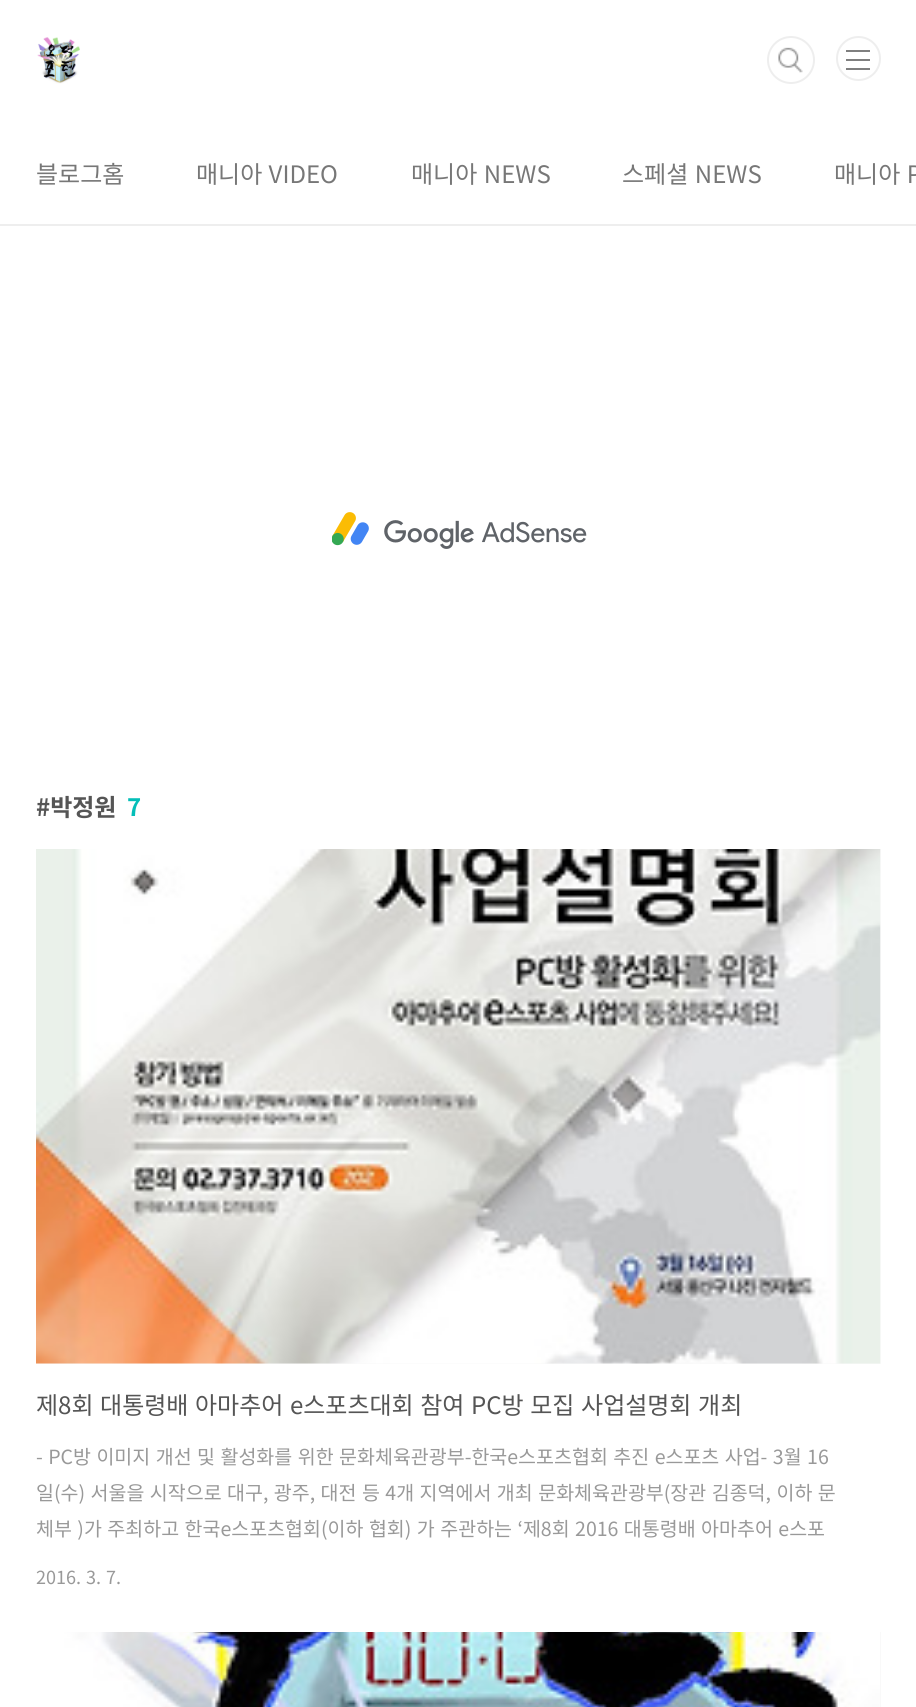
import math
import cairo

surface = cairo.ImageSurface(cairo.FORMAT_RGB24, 916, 1707)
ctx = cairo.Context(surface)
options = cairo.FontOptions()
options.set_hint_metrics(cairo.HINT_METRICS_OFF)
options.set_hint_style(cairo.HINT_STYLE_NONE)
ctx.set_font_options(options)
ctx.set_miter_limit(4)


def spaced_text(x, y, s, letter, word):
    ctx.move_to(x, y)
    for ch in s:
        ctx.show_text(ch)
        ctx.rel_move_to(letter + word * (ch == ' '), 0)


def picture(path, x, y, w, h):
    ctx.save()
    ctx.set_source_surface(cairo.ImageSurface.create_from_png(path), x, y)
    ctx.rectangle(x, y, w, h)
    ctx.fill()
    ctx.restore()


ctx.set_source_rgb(1, 1, 1)
ctx.paint()
ctx.set_source_rgb(0.933, 0.933, 0.933)
ctx.rectangle(0, 224, 916, 2)
ctx.fill()
picture("img1.png", 37, 37, 43, 47)
ctx.arc(790.5, 60.5, 21.5, 0, 2 * math.pi)
ctx.stroke()
ctx.set_source_rgb(1, 1, 1)
ctx.arc(791, 60, 24, 0, 2 * math.pi)
ctx.fill()
picture("img2.png", 778, 47, 25, 26)
ctx.arc(791, 60, 23, 0, 2 * math.pi)
ctx.set_source_rgb(0.933, 0.933, 0.933)
ctx.stroke()
ctx.arc(858.5, 58.5, 21.5, 0, 2 * math.pi)
ctx.stroke()
ctx.set_source_rgb(0.498, 0.498, 0.498)
ctx.rectangle(846, 50, 24, 2)
ctx.fill()
ctx.rectangle(846, 59, 24, 2)
ctx.fill()
ctx.rectangle(846, 68, 24, 2)
ctx.fill()
ctx.select_font_face("Noto Sans KR")
ctx.set_font_size(24)
ctx.set_source_rgb(0.467, 0.467, 0.467)
ctx.move_to(36, 183)
ctx.show_text("블로그홈")
spaced_text(196, 183, "매니아 VIDEO", 0, 1)
spaced_text(411, 183, "매니아 NEWS", 0, 1.25)
spaced_text(622, 183, "스페셜 NEWS", 0, 1.25)
spaced_text(834, 183, "매니아 P", 0, 1.25)
picture("img3.png", 332, 512, 255, 37)
ctx.select_font_face("Noto Sans KR", cairo.FONT_SLANT_NORMAL, cairo.FONT_WEIGHT_BOLD)
ctx.set_source_rgb(0.333, 0.333, 0.333)
ctx.move_to(36, 816)
ctx.show_text("#박정원")
ctx.set_source_rgb(0.016, 0.745, 0.722)
ctx.move_to(127, 816)
ctx.show_text("7")
ctx.set_source_rgb(0.973, 0.973, 0.973)
ctx.rectangle(36, 849, 845, 515)
ctx.fill()
picture("img4.png", 36, 849, 845, 515)
ctx.select_font_face("Noto Sans KR")
ctx.set_source_rgb(0.333, 0.333, 0.333)
spaced_text(36, 1414, "제8회 대통령배 아마추어 e스포츠대회 참여 PC방 모집 사업설명회 개최", 0, 1.25)
ctx.set_font_size(19.5)
ctx.set_source_rgb(0.6, 0.6, 0.6)
spaced_text(36, 1464, "- PC방 이미지 개선 및 활성화를 위한 문화체육관광부-한국e스포츠협회 추진 e스포츠 사업- 3월 16", 0, 1.1)
spaced_text(36, 1500, "일(수) 서울을 시작으로 대구, 광주, 대전 등 4개 지역에서 개최 문화체육관광부(장관 김종덕, 이하 문", 0, 1.1)
spaced_text(36, 1536, "체부 )가 주최하고 한국e스포츠협회(이하 협회) 가 주관하는 ‘제8회 2016 대통령배 아마추어 e스포", 0, 1.1)
ctx.set_font_size(18)
spaced_text(36, 1584, "2016. 3. 7.", 0, 1)
ctx.set_source_rgb(0.973, 0.973, 0.973)
ctx.rectangle(880, 1632, 1, 75)
ctx.fill()
picture("img5.png", 36, 1632, 844, 75)
surface.write_to_png("page.png")
